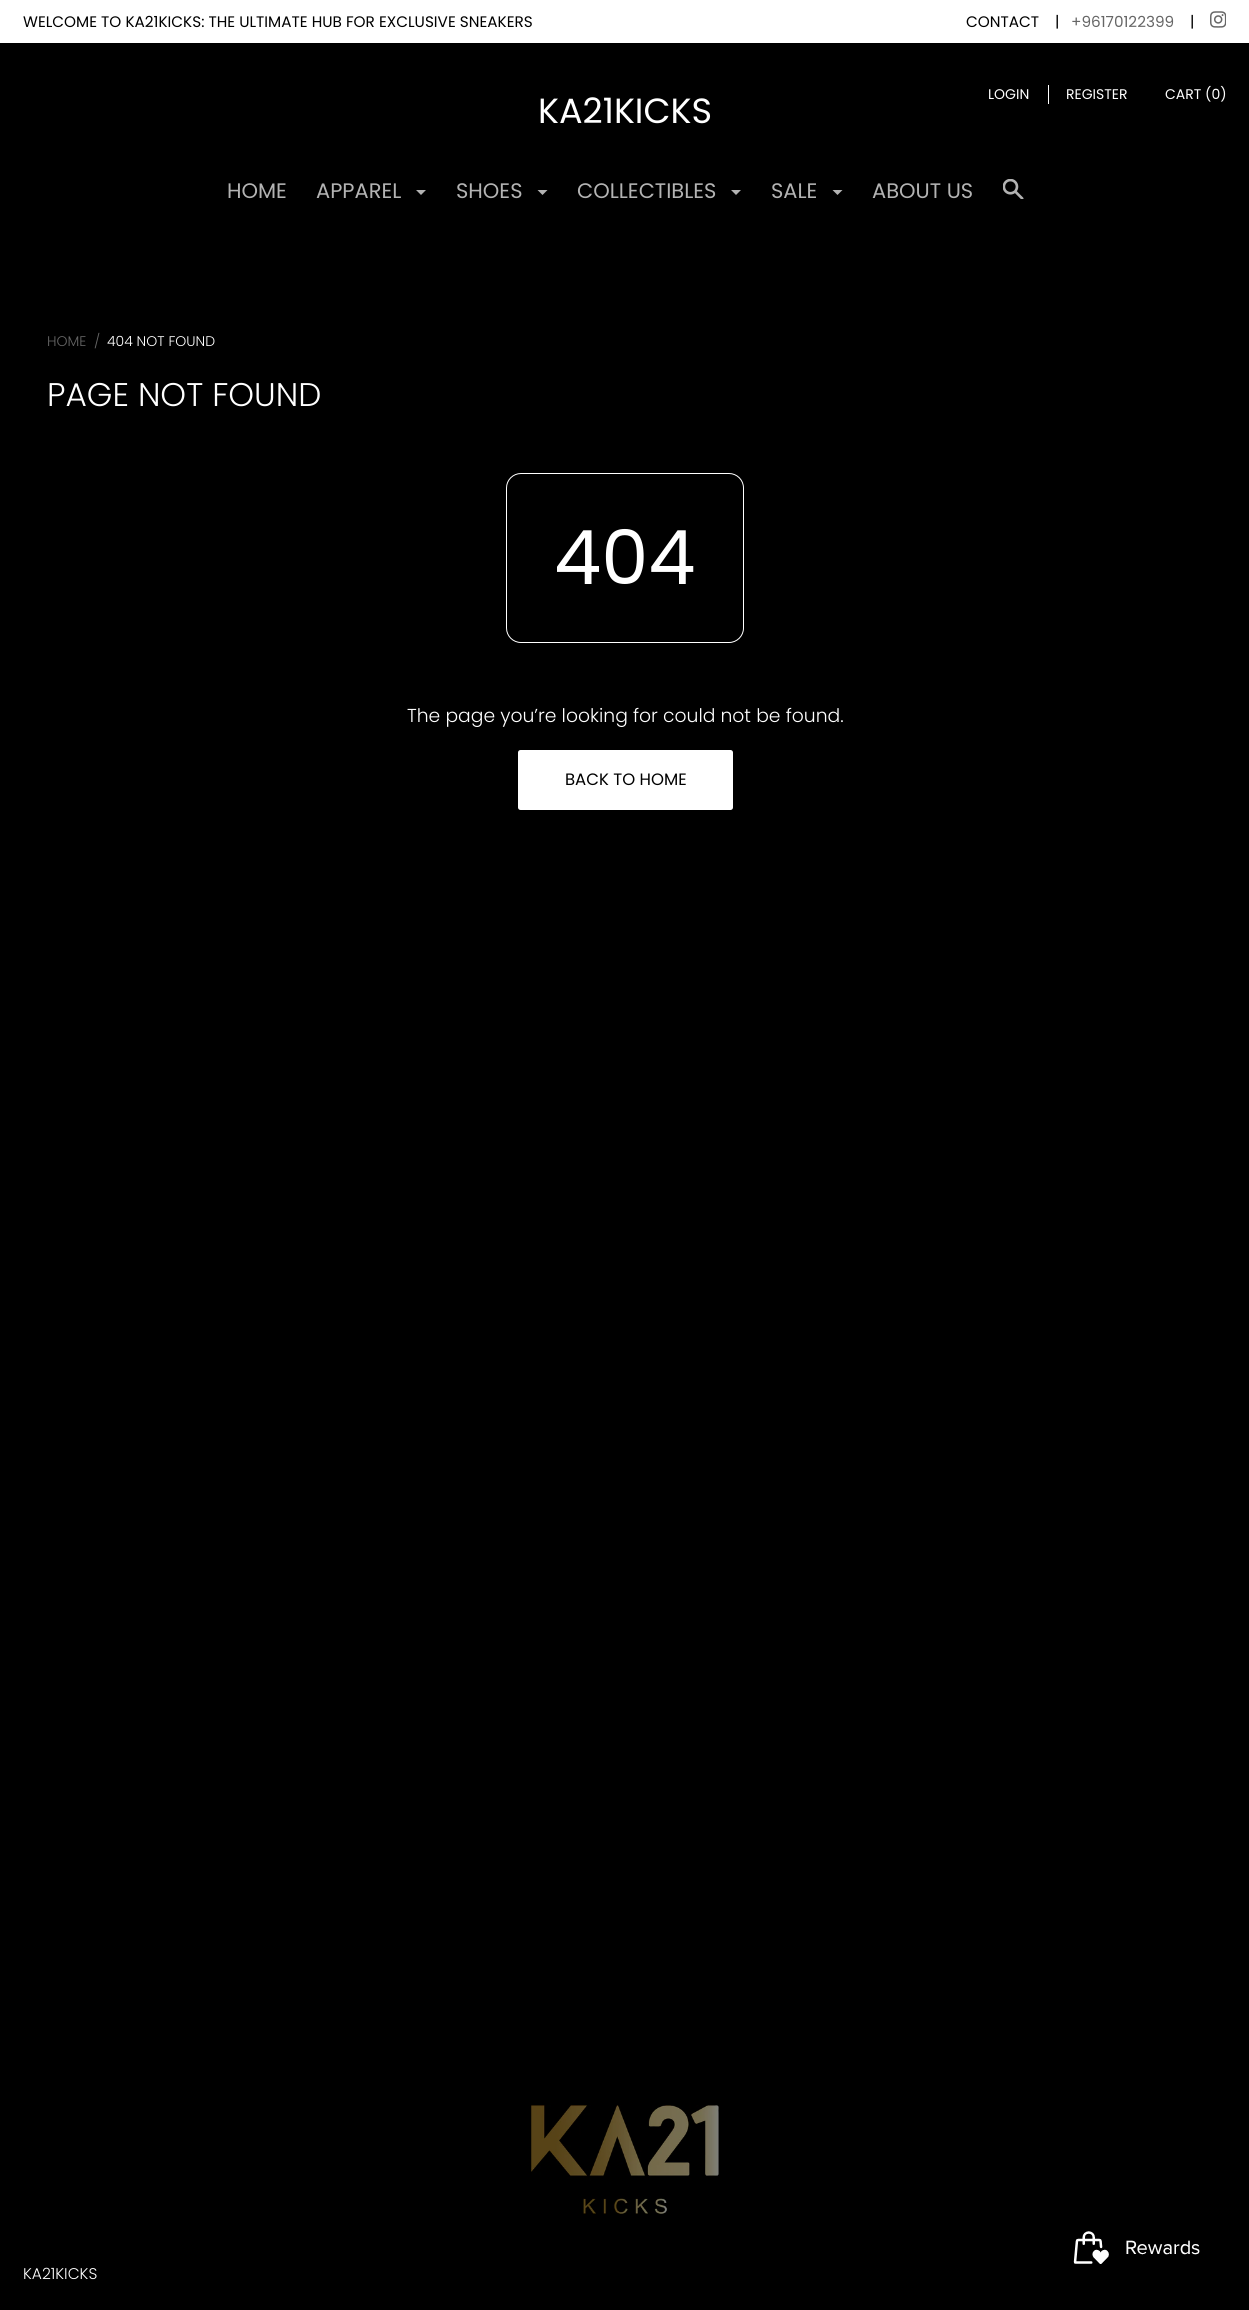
import math
import cairo

surface = cairo.ImageSurface(cairo.FORMAT_RGB24, 1249, 2310)
ctx = cairo.Context(surface)
options = cairo.FontOptions()
options.set_hint_metrics(cairo.HINT_METRICS_OFF)
options.set_hint_style(cairo.HINT_STYLE_NONE)
ctx.set_font_options(options)
ctx.set_miter_limit(4)


def round_rect(x, y, w, h, r):
    ctx.new_sub_path()
    for i, (u, v) in enumerate([(x + w - r, y + h - r), (x + r, y + h - r), (x + r, y + r), (x + w - r, y + r)]):
        ctx.arc(u, v, r, i * math.pi / 2, (i + 1) * math.pi / 2)
    ctx.close_path()


def picture(path, x, y, w, h):
    ctx.save()
    ctx.set_source_surface(cairo.ImageSurface.create_from_png(path), x, y)
    ctx.rectangle(x, y, w, h)
    ctx.fill()
    ctx.restore()


ctx.set_source_rgb(0, 0, 0)
ctx.paint()
ctx.set_source_rgb(1, 1, 1)
ctx.rectangle(0, 0, 1249, 43)
ctx.fill()
ctx.select_font_face("Poppins")
ctx.set_font_size(15.25)
ctx.set_source_rgb(0, 0, 0)
ctx.move_to(23, 27)
ctx.show_text("WELCOME TO KA21KICKS: THE ULTIMATE HUB FOR EXCLUSIVE SNEAKERS")
ctx.move_to(966, 27)
ctx.show_text("CONTACT")
ctx.move_to(1055, 27)
ctx.show_text("|")
ctx.set_source_rgb(0.4, 0.4, 0.4)
ctx.move_to(1071, 27)
ctx.show_text("+96170122399")
ctx.set_source_rgb(0, 0, 0)
ctx.move_to(1190, 27)
ctx.show_text("|")
picture("img1.png", 1210, 11, 16, 17)
ctx.set_font_size(14)
ctx.set_source_rgb(1, 1, 1)
ctx.move_to(988, 99)
ctx.show_text("LOGIN")
ctx.rectangle(1048, 85, 1, 19)
ctx.fill()
ctx.move_to(1066, 99)
ctx.show_text("REGISTER")
ctx.move_to(1165, 99)
ctx.show_text("CART (0)")
ctx.set_font_size(35)
ctx.move_to(538, 123)
ctx.show_text("KA21KICKS")
ctx.set_font_size(21)
ctx.set_source_rgb(0.702, 0.702, 0.702)
ctx.move_to(227, 198)
ctx.show_text("HOME")
ctx.move_to(316, 198)
ctx.show_text("APPAREL")
ctx.new_path()
ctx.move_to(416, 190)
ctx.line_to(426, 190)
ctx.line_to(421, 195)
ctx.close_path()
ctx.fill()
ctx.move_to(456, 198)
ctx.show_text("SHOES")
ctx.new_path()
ctx.move_to(537.5, 190)
ctx.line_to(547.5, 190)
ctx.line_to(542.5, 195)
ctx.close_path()
ctx.fill()
ctx.move_to(577, 198)
ctx.show_text("COLLECTIBLES")
ctx.new_path()
ctx.move_to(731, 190)
ctx.line_to(741, 190)
ctx.line_to(736, 195)
ctx.close_path()
ctx.fill()
ctx.move_to(771, 198)
ctx.show_text("SALE")
ctx.new_path()
ctx.move_to(832.5, 190)
ctx.line_to(842.5, 190)
ctx.line_to(837.5, 195)
ctx.close_path()
ctx.fill()
ctx.move_to(872, 198)
ctx.show_text("ABOUT US")
picture("img2.png", 1003, 179, 21, 20)
ctx.select_font_face("Poppins Light")
ctx.set_font_size(14)
ctx.set_source_rgb(0.4, 0.4, 0.4)
ctx.move_to(47, 346)
ctx.show_text("HOME")
ctx.move_to(94, 346)
ctx.show_text("/")
ctx.set_source_rgb(1, 1, 1)
ctx.move_to(107, 346)
ctx.show_text("404 NOT FOUND")
ctx.set_font_size(32.75)
ctx.move_to(47, 406)
ctx.show_text("PAGE NOT FOUND")
round_rect(506.5, 473.5, 237, 169, 14.5)
ctx.set_line_width(1)
ctx.stroke()
ctx.select_font_face("Poppins")
ctx.set_font_size(75)
ctx.move_to(554, 584)
ctx.show_text("404")
ctx.select_font_face("Poppins Light")
ctx.set_font_size(18.75)
ctx.move_to(407, 722)
ctx.show_text("The page you’re looking for could not be found.")
round_rect(518, 750, 215, 60, 2.5)
ctx.fill()
ctx.select_font_face("Poppins")
ctx.set_font_size(16.5)
ctx.set_source_rgb(0, 0, 0)
ctx.move_to(565, 785)
ctx.show_text("BACK TO HOME")
picture("img3.png", 531, 2105, 188, 109)
ctx.select_font_face("Poppins Light")
ctx.set_font_size(15.5)
ctx.set_source_rgb(1, 1, 1)
ctx.move_to(23, 2279)
ctx.show_text("KA21KICKS")
picture("img4.png", 1073, 2231, 134, 37)
surface.write_to_png("page.png")
